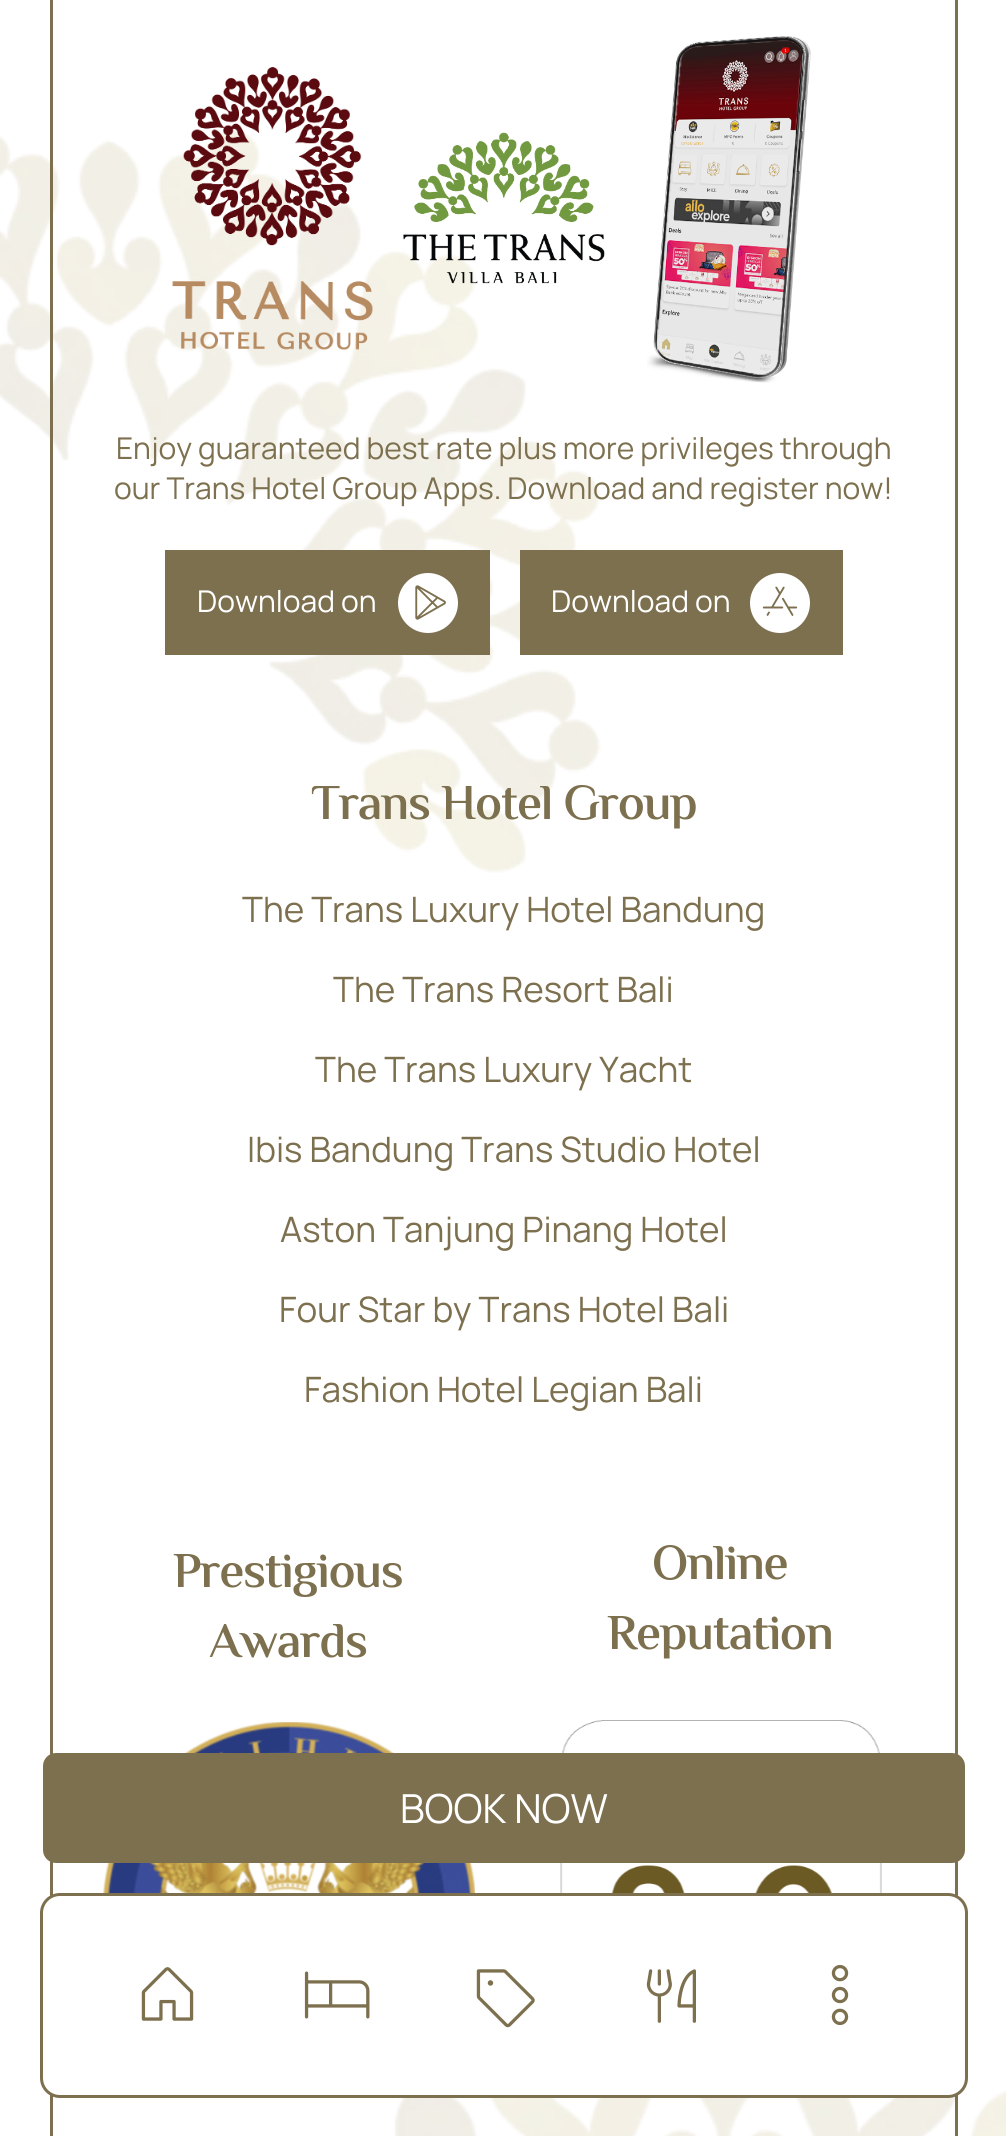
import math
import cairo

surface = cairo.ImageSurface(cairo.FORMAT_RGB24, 1006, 2136)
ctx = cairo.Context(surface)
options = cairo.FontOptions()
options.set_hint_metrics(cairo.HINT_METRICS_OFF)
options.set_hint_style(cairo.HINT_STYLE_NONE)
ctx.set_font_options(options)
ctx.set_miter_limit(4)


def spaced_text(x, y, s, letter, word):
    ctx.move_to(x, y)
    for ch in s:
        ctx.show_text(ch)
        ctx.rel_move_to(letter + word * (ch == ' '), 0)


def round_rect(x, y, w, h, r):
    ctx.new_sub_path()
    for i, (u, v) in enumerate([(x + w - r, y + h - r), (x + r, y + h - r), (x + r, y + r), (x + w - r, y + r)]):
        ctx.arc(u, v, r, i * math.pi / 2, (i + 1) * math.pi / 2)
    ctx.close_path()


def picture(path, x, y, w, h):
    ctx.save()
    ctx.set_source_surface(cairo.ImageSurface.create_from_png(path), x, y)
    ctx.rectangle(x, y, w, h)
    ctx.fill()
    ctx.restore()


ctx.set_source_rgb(1, 1, 1)
ctx.paint()
picture("img1.png", 0, 130, 1006, 2006)
ctx.rectangle(51.5, -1.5, 905, 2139)
ctx.set_source_rgb(0.49, 0.439, 0.31)
ctx.set_line_width(3)
ctx.stroke()
picture("img2.png", 172, 67, 201, 283)
picture("img3.png", 403, 132, 202, 152)
picture("img4.png", 647, 36, 164, 347)
ctx.select_font_face("Manrope")
ctx.set_font_size(30)
ctx.move_to(116, 459)
ctx.show_text("Enjoy guaranteed best rate plus more privileges through")
ctx.move_to(114, 499)
ctx.show_text("our Trans Hotel Group Apps. Download and register now!")
ctx.rectangle(165, 550, 325, 105)
ctx.fill()
ctx.set_source_rgb(1, 1, 1)
ctx.move_to(197, 612)
ctx.show_text("Download on")
ctx.new_path()
ctx.arc(428, 603, 30, 0, 2 * math.pi)
ctx.fill()
picture("img5.png", 415, 585, 31, 35)
ctx.set_source_rgb(0.49, 0.439, 0.31)
ctx.rectangle(520, 550, 323, 105)
ctx.fill()
ctx.set_source_rgb(1, 1, 1)
ctx.move_to(551, 612)
ctx.show_text("Download on")
ctx.new_path()
ctx.arc(780, 603, 30, 0, 2 * math.pi)
ctx.fill()
picture("img6.png", 762, 586, 36, 30)
ctx.select_font_face("El Messiri SemiBold")
ctx.set_font_size(50)
ctx.set_source_rgb(0.49, 0.439, 0.31)
spaced_text(311, 819, "Trans Hotel Group", -1.25, 0)
ctx.select_font_face("Manrope")
ctx.set_font_size(35)
ctx.move_to(242, 922)
ctx.show_text("The Trans Luxury Hotel Bandung")
ctx.move_to(333, 1002)
ctx.show_text("The Trans Resort Bali")
ctx.move_to(315, 1082)
ctx.show_text("The Trans Luxury Yacht")
ctx.move_to(247, 1162)
ctx.show_text("Ibis Bandung Trans Studio Hotel")
ctx.move_to(280, 1242)
ctx.show_text("Aston Tanjung Pinang Hotel")
ctx.move_to(279, 1322)
ctx.show_text("Four Star by Trans Hotel Bali")
ctx.move_to(304, 1402)
ctx.show_text("Fashion Hotel Legian Bali")
ctx.select_font_face("El Messiri SemiBold")
ctx.set_font_size(50)
spaced_text(173, 1587, "Prestigious", -1.25, 0)
spaced_text(209, 1657, "Awards", -1.25, 0)
picture("img7.png", 103, 1722, 372, 171)
spaced_text(652, 1579, "Online", -1.25, 0)
spaced_text(607, 1649, "Reputation", -1.25, 0)
picture("img8.png", 560, 1720, 322, 173)
ctx.set_source_rgb(1, 1, 1)
round_rect(41.5, 1894.5, 925, 202, 18.5)
ctx.fill_preserve()
ctx.set_source_rgb(0.49, 0.439, 0.31)
ctx.stroke()
round_rect(43, 1753, 922, 110, 13)
ctx.fill()
ctx.select_font_face("Manrope")
ctx.set_font_size(40)
ctx.set_source_rgb(1, 1, 1)
ctx.move_to(400, 1823)
ctx.show_text("BOOK NOW")
picture("img9.png", 141, 1967, 53, 54)
picture("img10.png", 304, 1971, 66, 48)
picture("img11.png", 476, 1969, 59, 59)
picture("img12.png", 646, 1969, 50, 54)
picture("img13.png", 831, 1964, 18, 62)
surface.write_to_png("page.png")
